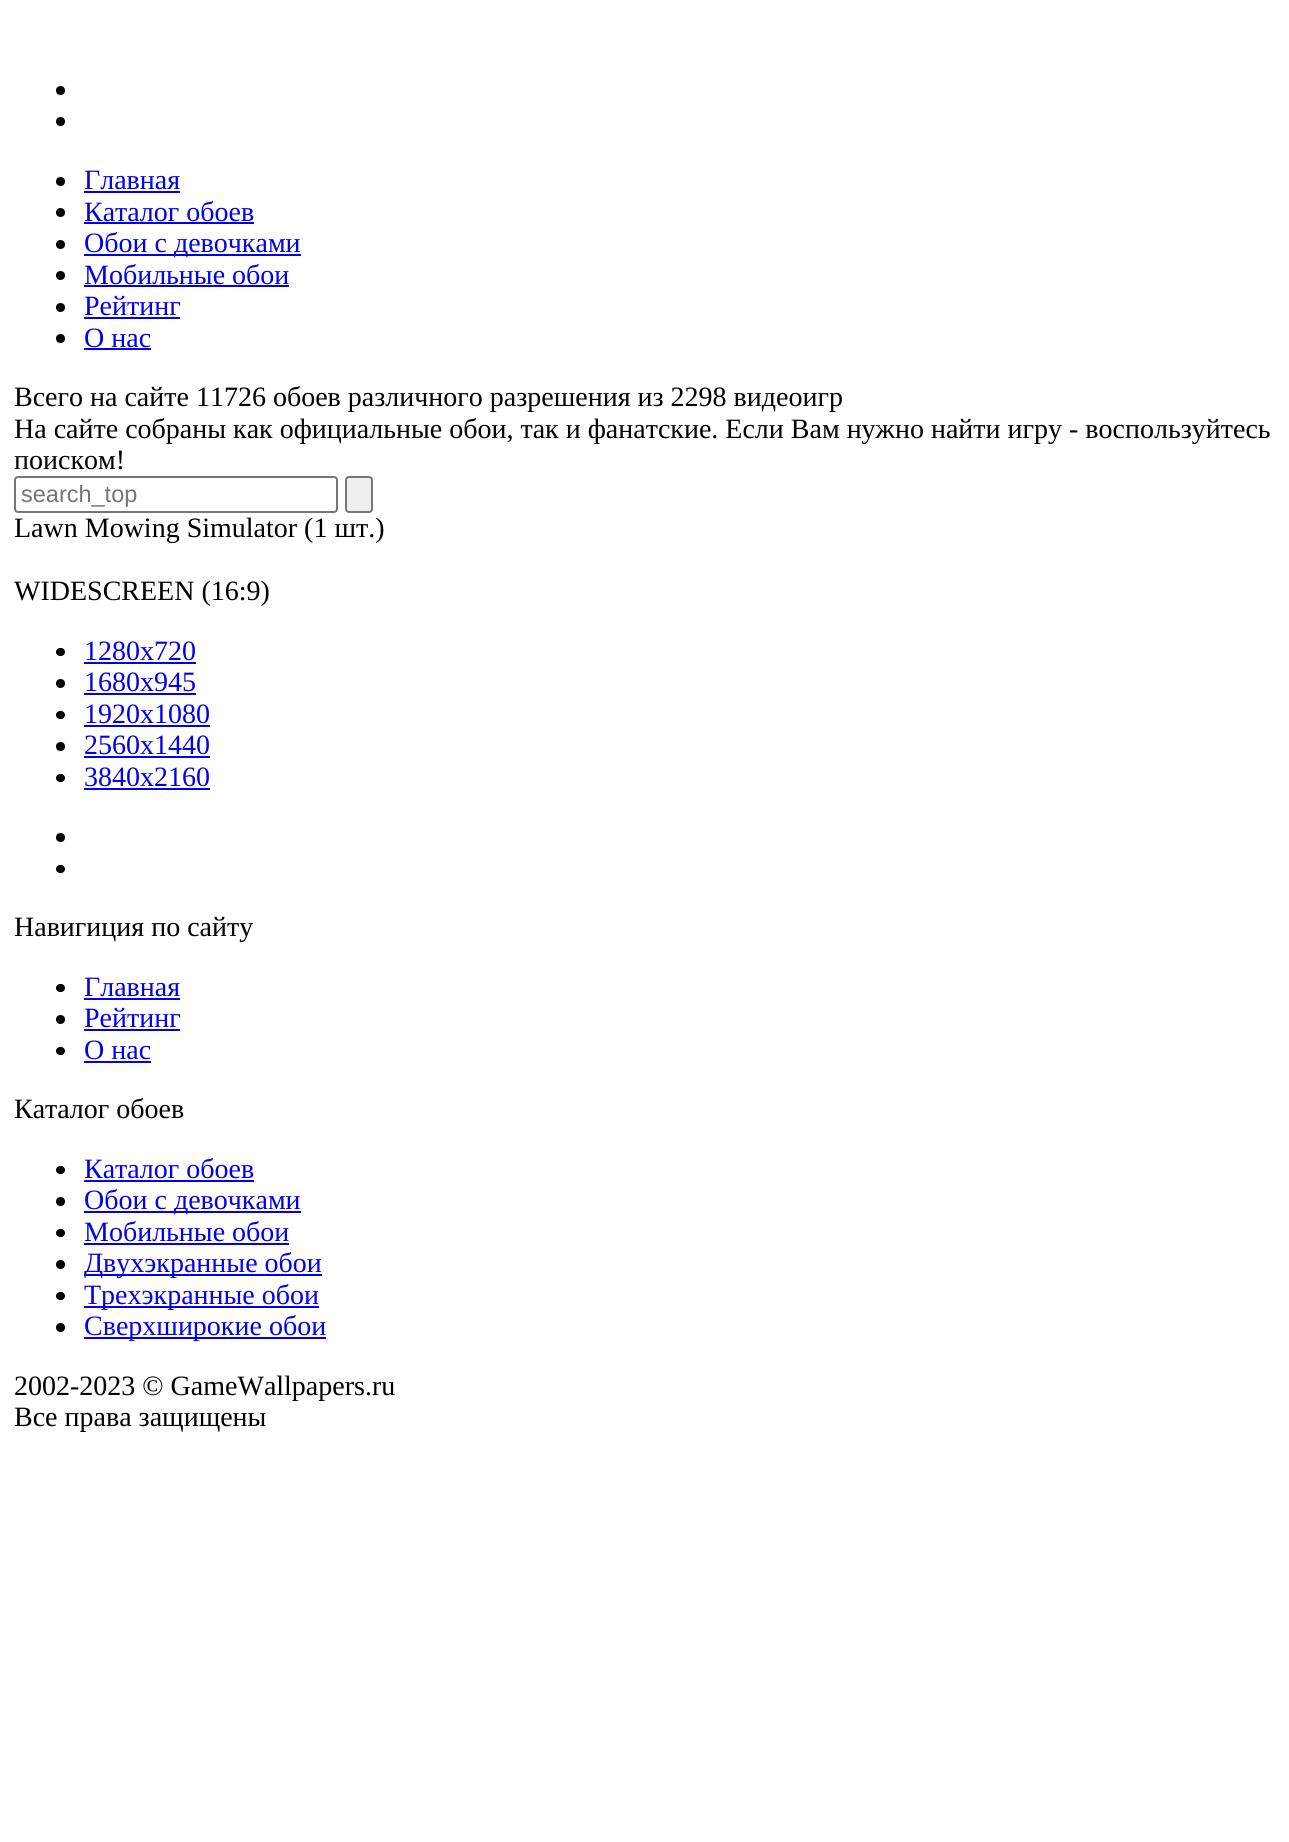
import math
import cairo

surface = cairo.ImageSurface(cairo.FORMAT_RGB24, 1289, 1842)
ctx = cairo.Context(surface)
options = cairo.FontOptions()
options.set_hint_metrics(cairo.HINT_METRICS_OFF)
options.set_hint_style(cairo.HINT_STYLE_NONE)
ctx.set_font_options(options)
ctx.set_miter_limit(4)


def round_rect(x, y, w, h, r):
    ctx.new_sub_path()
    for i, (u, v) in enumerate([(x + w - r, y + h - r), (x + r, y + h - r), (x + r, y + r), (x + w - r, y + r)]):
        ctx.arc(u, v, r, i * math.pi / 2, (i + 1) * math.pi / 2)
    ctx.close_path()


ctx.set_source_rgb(1, 1, 1)
ctx.paint()
ctx.set_source_rgb(0, 0, 0)
ctx.arc(60.5, 90.5, 4.5, 0, 2 * math.pi)
ctx.fill()
ctx.arc(60.5, 121.5, 4.5, 0, 2 * math.pi)
ctx.fill()
ctx.arc(60.5, 181.5, 4.5, 0, 2 * math.pi)
ctx.fill()
ctx.select_font_face("Liberation Serif")
ctx.set_font_size(28)
ctx.set_source_rgb(0, 0, 0.933)
ctx.move_to(84, 189)
ctx.show_text("Главная")
ctx.rectangle(84, 191, 96, 2)
ctx.fill()
ctx.set_source_rgb(0, 0, 0)
ctx.arc(60.5, 212.5, 4.5, 0, 2 * math.pi)
ctx.fill()
ctx.set_source_rgb(0, 0, 0.933)
ctx.move_to(84, 221)
ctx.show_text("Каталог обоев")
ctx.rectangle(84, 222, 170, 2)
ctx.fill()
ctx.set_source_rgb(0, 0, 0)
ctx.arc(60.5, 244.5, 4.5, 0, 2 * math.pi)
ctx.fill()
ctx.set_source_rgb(0, 0, 0.933)
ctx.rectangle(84, 254, 217, 2)
ctx.fill()
ctx.move_to(84, 252)
ctx.show_text("Обои с девочками")
ctx.set_source_rgb(0, 0, 0)
ctx.new_path()
ctx.arc(60.5, 275.5, 4.5, 0, 2 * math.pi)
ctx.fill()
ctx.set_source_rgb(0, 0, 0.933)
ctx.move_to(84, 284)
ctx.show_text("Мобильные обои")
ctx.rectangle(84, 285, 205, 2)
ctx.fill()
ctx.set_source_rgb(0, 0, 0)
ctx.arc(60.5, 307.5, 4.5, 0, 2 * math.pi)
ctx.fill()
ctx.set_source_rgb(0, 0, 0.933)
ctx.move_to(84, 315)
ctx.show_text("Рейтинг")
ctx.rectangle(84, 317, 96, 2)
ctx.fill()
ctx.set_source_rgb(0, 0, 0)
ctx.arc(60.5, 338.5, 4.5, 0, 2 * math.pi)
ctx.fill()
ctx.set_source_rgb(0, 0, 0.933)
ctx.move_to(84, 347)
ctx.show_text("О нас")
ctx.rectangle(84, 348, 67, 2)
ctx.fill()
ctx.set_source_rgb(0, 0, 0)
ctx.move_to(14, 406)
ctx.show_text("Всего на сайте 11726 обоев различного разрешения из 2298 видеоигр")
ctx.move_to(14, 438)
ctx.show_text("На сайте собраны как официальные обои, так и фанатские. Если Вам нужно найти игру - воспользуйтесь")
ctx.move_to(14, 469)
ctx.show_text("поиском!")
round_rect(15, 477, 322, 35, 3)
ctx.set_source_rgb(0.463, 0.463, 0.463)
ctx.stroke()
ctx.select_font_face("Liberation Sans")
ctx.set_font_size(23.5)
ctx.set_source_rgb(0.459, 0.459, 0.459)
ctx.move_to(21, 502)
ctx.show_text("search_top")
ctx.set_source_rgb(0.937, 0.937, 0.937)
round_rect(346, 477, 26, 35, 3)
ctx.fill_preserve()
ctx.set_source_rgb(0.463, 0.463, 0.463)
ctx.stroke()
ctx.select_font_face("Liberation Serif")
ctx.set_font_size(28)
ctx.set_source_rgb(0, 0, 0)
ctx.move_to(14, 537)
ctx.show_text("Lawn Mowing Simulator (1 шт.)")
ctx.move_to(14, 600)
ctx.show_text("WIDESCREEN (16:9)")
round_rect(56, 648, 9, 8, 4)
ctx.fill()
ctx.set_source_rgb(0, 0, 0.933)
ctx.move_to(84, 660)
ctx.show_text("1280x720")
ctx.rectangle(84, 662, 112, 2)
ctx.fill()
ctx.set_source_rgb(0, 0, 0)
ctx.arc(60.5, 683.5, 4.5, 0, 2 * math.pi)
ctx.fill()
ctx.set_source_rgb(0, 0, 0.933)
ctx.move_to(84, 691)
ctx.show_text("1680x945")
ctx.rectangle(84, 693, 112, 2)
ctx.fill()
ctx.set_source_rgb(0, 0, 0)
round_rect(56, 711, 9, 8, 4)
ctx.fill()
ctx.set_source_rgb(0, 0, 0.933)
ctx.move_to(84, 723)
ctx.show_text("1920x1080")
ctx.rectangle(84, 725, 126, 2)
ctx.fill()
ctx.set_source_rgb(0, 0, 0)
ctx.arc(60.5, 746.5, 4.5, 0, 2 * math.pi)
ctx.fill()
ctx.set_source_rgb(0, 0, 0.933)
ctx.move_to(84, 754)
ctx.show_text("2560x1440")
ctx.rectangle(84, 756, 126, 2)
ctx.fill()
ctx.set_source_rgb(0, 0, 0)
round_rect(56, 774, 9, 8, 4)
ctx.fill()
ctx.set_source_rgb(0, 0, 0.933)
ctx.move_to(84, 786)
ctx.show_text("3840x2160")
ctx.rectangle(84, 788, 126, 2)
ctx.fill()
ctx.set_source_rgb(0, 0, 0)
ctx.arc(60.5, 837.5, 4.5, 0, 2 * math.pi)
ctx.fill()
round_rect(56, 865, 9, 8, 4)
ctx.fill()
ctx.move_to(14, 936)
ctx.show_text("Навигиция по сайту")
round_rect(56, 984, 9, 8, 4)
ctx.fill()
ctx.set_source_rgb(0, 0, 0.933)
ctx.move_to(84, 996)
ctx.show_text("Главная")
ctx.rectangle(84, 998, 96, 2)
ctx.fill()
ctx.set_source_rgb(0, 0, 0)
ctx.arc(60.5, 1019.5, 4.5, 0, 2 * math.pi)
ctx.fill()
ctx.set_source_rgb(0, 0, 0.933)
ctx.move_to(84, 1027)
ctx.show_text("Рейтинг")
ctx.rectangle(84, 1029, 96, 2)
ctx.fill()
ctx.set_source_rgb(0, 0, 0)
round_rect(56, 1047, 9, 8, 4)
ctx.fill()
ctx.set_source_rgb(0, 0, 0.933)
ctx.move_to(84, 1059)
ctx.show_text("О нас")
ctx.rectangle(84, 1061, 67, 2)
ctx.fill()
ctx.set_source_rgb(0, 0, 0)
ctx.move_to(14, 1118)
ctx.show_text("Каталог обоев")
round_rect(56, 1166, 9, 8, 4)
ctx.fill()
ctx.set_source_rgb(0, 0, 0.933)
ctx.move_to(84, 1178)
ctx.show_text("Каталог обоев")
ctx.rectangle(84, 1180, 170, 2)
ctx.fill()
ctx.set_source_rgb(0, 0, 0)
ctx.arc(60.5, 1201.5, 4.5, 0, 2 * math.pi)
ctx.fill()
ctx.set_source_rgb(0, 0, 0.933)
ctx.rectangle(84, 1211, 217, 2)
ctx.fill()
ctx.move_to(84, 1209)
ctx.show_text("Обои с девочками")
ctx.set_source_rgb(0, 0, 0)
round_rect(56, 1229, 9, 8, 4)
ctx.fill()
ctx.set_source_rgb(0, 0, 0.933)
ctx.move_to(84, 1241)
ctx.show_text("Мобильные обои")
ctx.rectangle(84, 1243, 205, 2)
ctx.fill()
ctx.set_source_rgb(0, 0, 0)
ctx.arc(60.5, 1264.5, 4.5, 0, 2 * math.pi)
ctx.fill()
ctx.set_source_rgb(0, 0, 0.933)
ctx.rectangle(84, 1274, 238, 2)
ctx.fill()
ctx.move_to(84, 1272)
ctx.show_text("Двухэкранные обои")
ctx.set_source_rgb(0, 0, 0)
round_rect(56, 1292, 9, 8, 4)
ctx.fill()
ctx.set_source_rgb(0, 0, 0.933)
ctx.rectangle(84, 1306, 235, 2)
ctx.fill()
ctx.move_to(84, 1304)
ctx.show_text("Трехэкранные обои")
ctx.set_source_rgb(0, 0, 0)
ctx.new_path()
ctx.arc(60.5, 1327.5, 4.5, 0, 2 * math.pi)
ctx.fill()
ctx.set_source_rgb(0, 0, 0.933)
ctx.rectangle(84, 1337, 242, 2)
ctx.fill()
ctx.move_to(84, 1335)
ctx.show_text("Сверхширокие обои")
ctx.set_source_rgb(0, 0, 0)
ctx.move_to(14, 1395)
ctx.show_text("2002-2023 © GameWallpapers.ru")
ctx.move_to(14, 1426)
ctx.show_text("Все права защищены")
surface.write_to_png("page.png")
